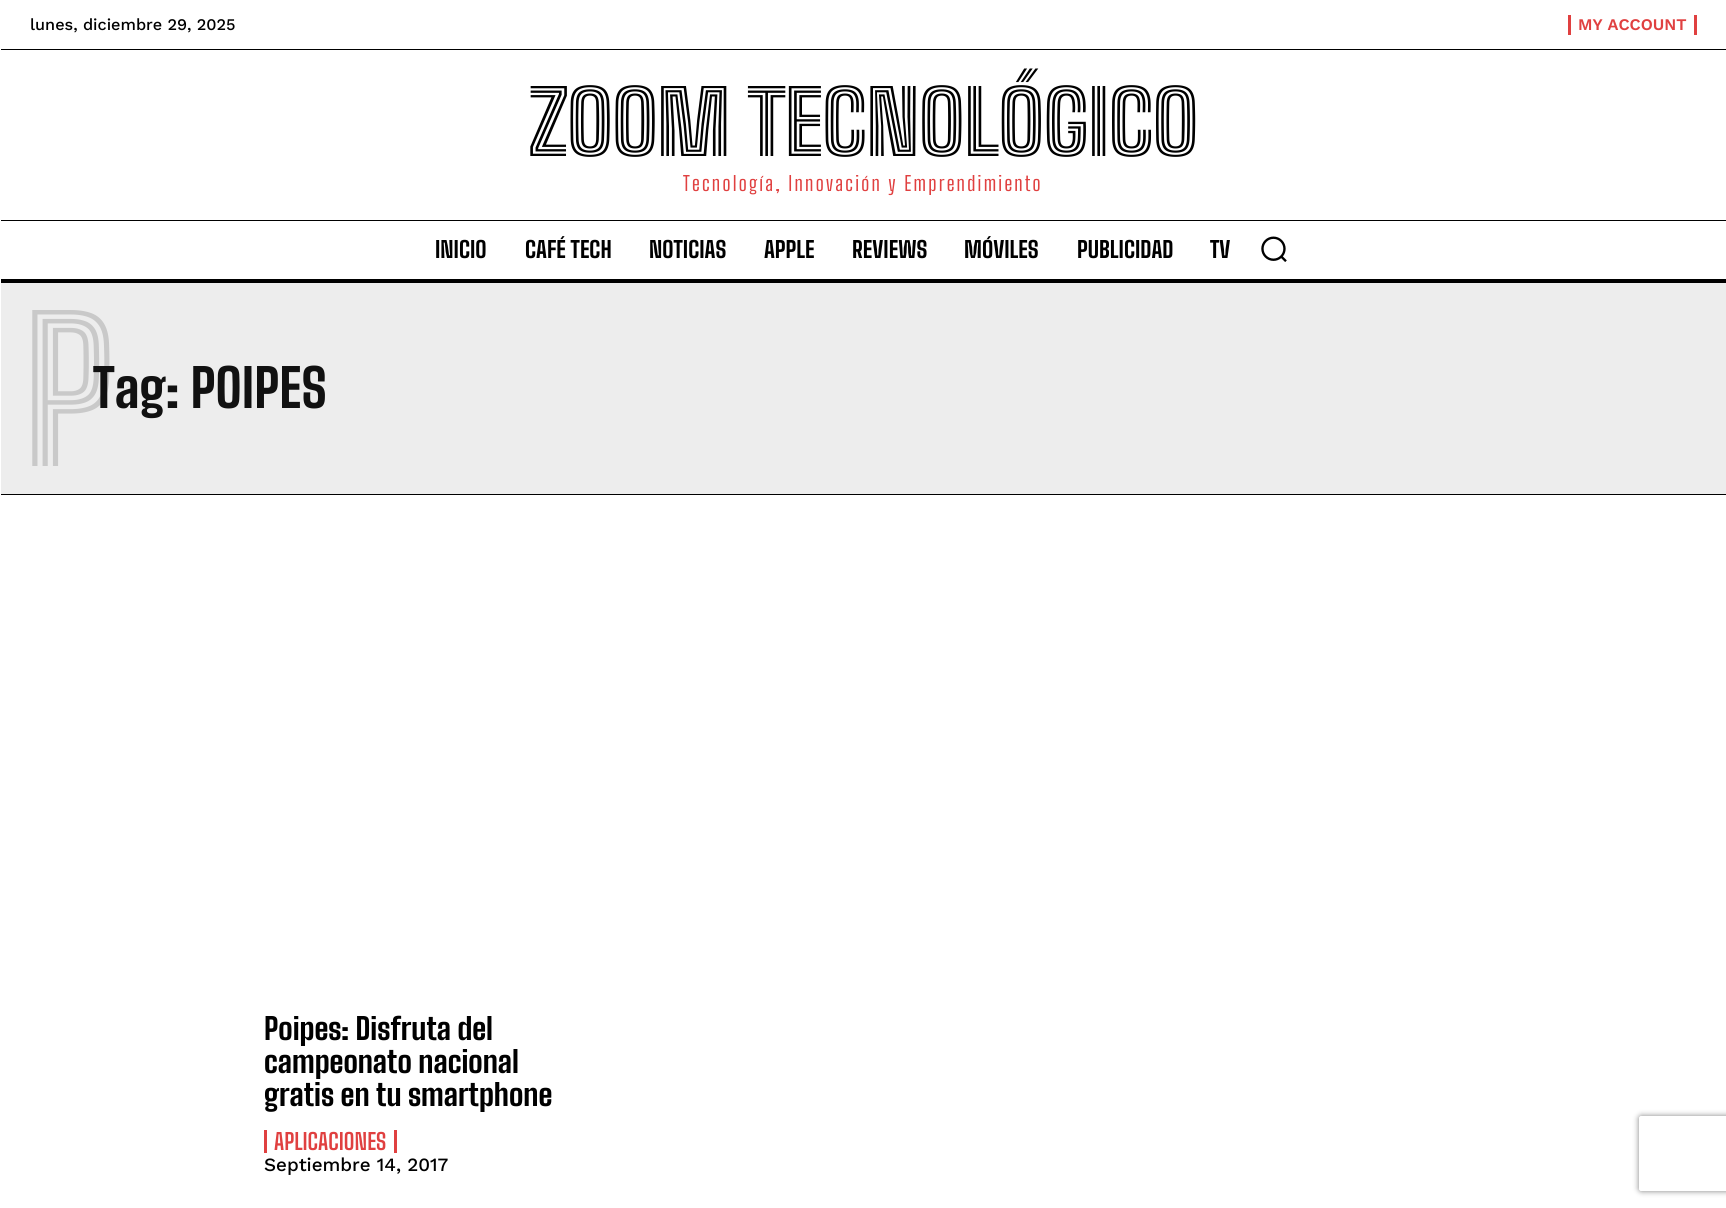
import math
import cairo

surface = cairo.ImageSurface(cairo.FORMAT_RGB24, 1726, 1208)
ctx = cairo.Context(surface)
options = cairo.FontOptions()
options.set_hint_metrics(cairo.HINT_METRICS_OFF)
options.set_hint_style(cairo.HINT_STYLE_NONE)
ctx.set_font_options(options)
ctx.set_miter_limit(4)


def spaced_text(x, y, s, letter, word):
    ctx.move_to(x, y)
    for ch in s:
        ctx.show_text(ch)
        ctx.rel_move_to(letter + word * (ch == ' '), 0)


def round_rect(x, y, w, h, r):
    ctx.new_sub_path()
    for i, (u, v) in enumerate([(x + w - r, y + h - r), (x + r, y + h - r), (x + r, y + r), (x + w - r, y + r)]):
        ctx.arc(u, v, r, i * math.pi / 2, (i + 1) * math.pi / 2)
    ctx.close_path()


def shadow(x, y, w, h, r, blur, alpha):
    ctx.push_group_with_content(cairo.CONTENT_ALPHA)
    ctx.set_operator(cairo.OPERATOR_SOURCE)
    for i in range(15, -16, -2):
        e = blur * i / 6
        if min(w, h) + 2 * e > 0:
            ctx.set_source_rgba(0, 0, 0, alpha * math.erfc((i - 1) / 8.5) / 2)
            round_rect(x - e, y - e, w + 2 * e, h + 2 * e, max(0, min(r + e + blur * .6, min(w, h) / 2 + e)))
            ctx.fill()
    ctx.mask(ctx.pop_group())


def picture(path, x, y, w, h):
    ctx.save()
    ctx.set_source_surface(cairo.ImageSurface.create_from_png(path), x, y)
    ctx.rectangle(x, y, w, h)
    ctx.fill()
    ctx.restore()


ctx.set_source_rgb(1, 1, 1)
ctx.paint()
ctx.select_font_face("Work Sans Medium")
ctx.set_font_size(16.25)
ctx.set_source_rgb(0, 0, 0)
ctx.move_to(30, 30)
ctx.show_text("lunes, diciembre 29, 2025")
ctx.set_source_rgb(0.878, 0.251, 0.251)
ctx.rectangle(1694, 15, 3, 20)
ctx.fill()
ctx.rectangle(1568, 15, 3, 20)
ctx.fill()
ctx.select_font_face("Work Sans SemiBold")
ctx.move_to(1578, 30)
ctx.show_text("MY ACCOUNT")
ctx.set_source_rgb(0, 0, 0)
ctx.rectangle(1, 49, 1725, 1)
ctx.fill()
ctx.select_font_face("Big Shoulders Inline Text Black")
ctx.set_font_size(87.5)
spaced_text(529, 156, "ZOOM TECNOLÓGICO", -1.25, 0)
ctx.select_font_face("Big Shoulders Text")
ctx.set_font_size(20)
ctx.set_source_rgb(0.878, 0.251, 0.251)
spaced_text(683, 191, "Tecnología, Innovación y Emprendimiento", 2.25, 0)
ctx.set_source_rgb(0, 0, 0)
ctx.rectangle(1, 220, 1725, 1)
ctx.fill()
ctx.rectangle(1, 279, 1725, 4)
ctx.fill()
ctx.select_font_face("Big Shoulders Text ExtraBold")
ctx.set_font_size(22.5)
ctx.move_to(435, 258)
ctx.show_text("INICIO")
ctx.move_to(525, 258)
ctx.show_text("CAFÉ TECH")
ctx.move_to(649, 258)
ctx.show_text("NOTICIAS")
ctx.move_to(764, 258)
ctx.show_text("APPLE")
ctx.move_to(852, 258)
ctx.show_text("REVIEWS")
ctx.move_to(964, 258)
ctx.show_text("MÓVILES")
ctx.move_to(1077, 258)
ctx.show_text("PUBLICIDAD")
ctx.move_to(1210, 258)
ctx.show_text("TV")
picture("img1.png", 1261, 236, 26, 26)
ctx.set_source_rgb(0.929, 0.929, 0.929)
ctx.rectangle(1, 283, 1725, 211)
ctx.fill()
ctx.set_source_rgb(0, 0, 0)
ctx.rectangle(1, 494, 1725, 1)
ctx.fill()
ctx.select_font_face("Big Shoulders Inline Text ExtraBold")
ctx.set_font_size(195)
ctx.set_source_rgb(0.788, 0.788, 0.788)
ctx.move_to(22, 466)
ctx.show_text("P")
ctx.select_font_face("Big Shoulders Text ExtraBold")
ctx.set_font_size(52.5)
ctx.set_source_rgb(0.067, 0.067, 0.067)
ctx.move_to(93, 408)
ctx.show_text("Tag: POIPES")
ctx.set_font_size(30)
ctx.set_source_rgb(0, 0, 0)
ctx.move_to(264, 1040)
ctx.show_text("Poipes: Disfruta del")
ctx.move_to(264, 1073)
ctx.show_text("campeonato nacional")
ctx.move_to(264, 1106)
ctx.show_text("gratis en tu smartphone")
ctx.set_source_rgb(0.878, 0.251, 0.251)
ctx.rectangle(394, 1130, 3, 23)
ctx.fill()
ctx.rectangle(264, 1130, 3, 23)
ctx.fill()
ctx.select_font_face("Big Shoulders Text", cairo.FONT_SLANT_NORMAL, cairo.FONT_WEIGHT_BOLD)
ctx.set_font_size(22.5)
ctx.move_to(274, 1150)
ctx.show_text("APLICACIONES")
ctx.select_font_face("Work Sans Medium")
ctx.set_font_size(18.75)
ctx.set_source_rgb(0, 0, 0)
ctx.move_to(264, 1171)
ctx.show_text("Septiembre 14, 2017")
ctx.save()
ctx.set_fill_rule(cairo.FILL_RULE_EVEN_ODD)
ctx.new_path()
ctx.move_to(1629, 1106)
ctx.line_to(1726, 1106)
ctx.line_to(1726, 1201)
ctx.line_to(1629, 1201)
ctx.close_path()
ctx.move_to(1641.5, 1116)
ctx.line_to(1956.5, 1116)
ctx.curve_to(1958, 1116, 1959, 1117, 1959, 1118.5)
ctx.line_to(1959, 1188.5)
ctx.curve_to(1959, 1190, 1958, 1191, 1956.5, 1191)
ctx.line_to(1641.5, 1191)
ctx.curve_to(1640, 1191, 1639, 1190, 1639, 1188.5)
ctx.line_to(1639, 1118.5)
ctx.curve_to(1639, 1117, 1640, 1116, 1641.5, 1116)
ctx.close_path()
ctx.clip()
ctx.set_source_rgb(0.502, 0.502, 0.502)
shadow(1639, 1116, 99, 75, 2.5, 3, 1)
ctx.restore()
surface.write_to_png("page.png")
